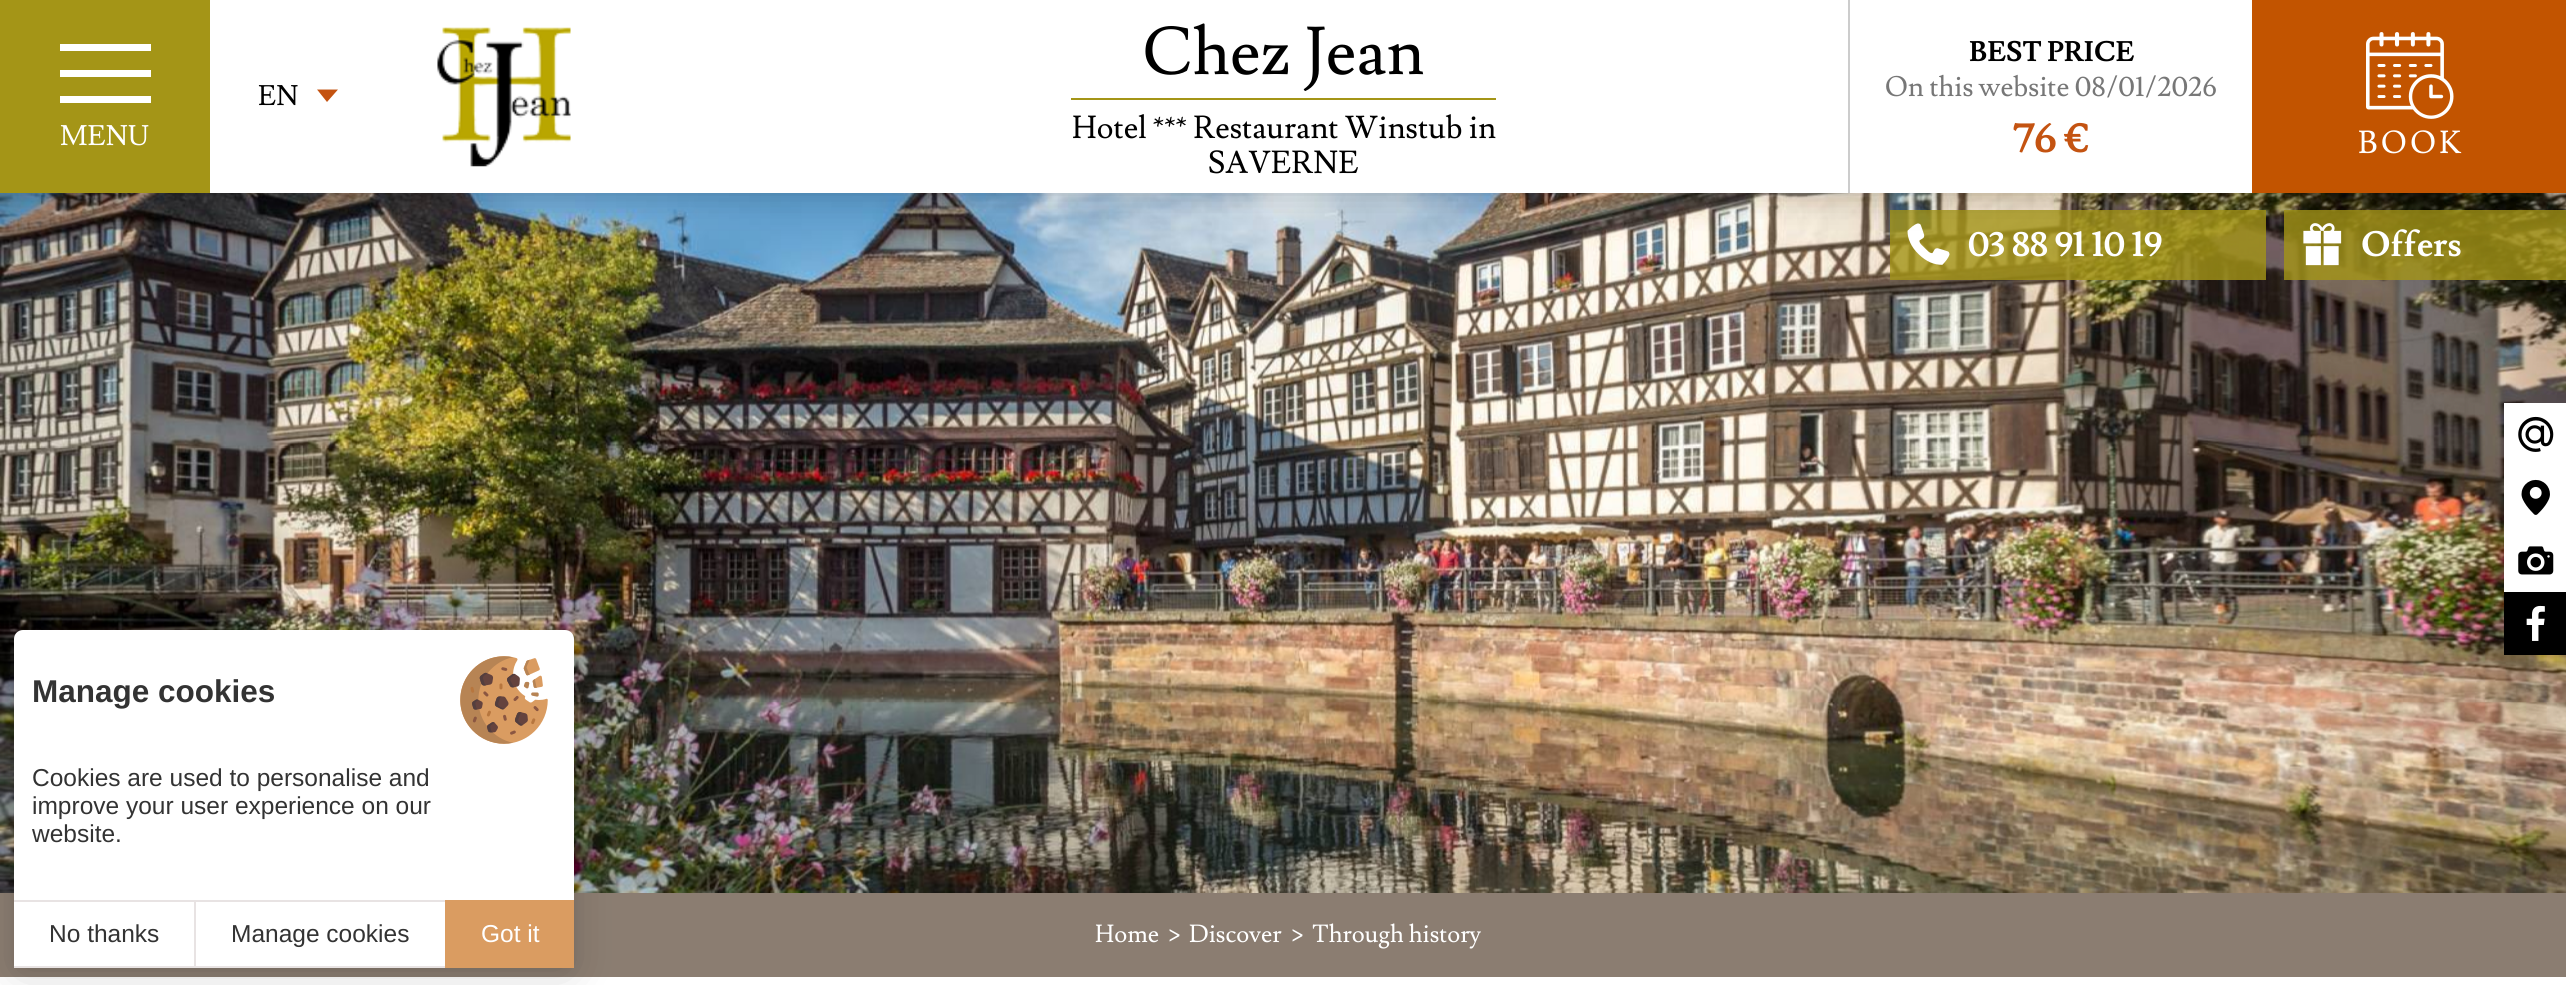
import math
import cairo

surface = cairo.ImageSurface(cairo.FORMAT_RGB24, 2566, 985)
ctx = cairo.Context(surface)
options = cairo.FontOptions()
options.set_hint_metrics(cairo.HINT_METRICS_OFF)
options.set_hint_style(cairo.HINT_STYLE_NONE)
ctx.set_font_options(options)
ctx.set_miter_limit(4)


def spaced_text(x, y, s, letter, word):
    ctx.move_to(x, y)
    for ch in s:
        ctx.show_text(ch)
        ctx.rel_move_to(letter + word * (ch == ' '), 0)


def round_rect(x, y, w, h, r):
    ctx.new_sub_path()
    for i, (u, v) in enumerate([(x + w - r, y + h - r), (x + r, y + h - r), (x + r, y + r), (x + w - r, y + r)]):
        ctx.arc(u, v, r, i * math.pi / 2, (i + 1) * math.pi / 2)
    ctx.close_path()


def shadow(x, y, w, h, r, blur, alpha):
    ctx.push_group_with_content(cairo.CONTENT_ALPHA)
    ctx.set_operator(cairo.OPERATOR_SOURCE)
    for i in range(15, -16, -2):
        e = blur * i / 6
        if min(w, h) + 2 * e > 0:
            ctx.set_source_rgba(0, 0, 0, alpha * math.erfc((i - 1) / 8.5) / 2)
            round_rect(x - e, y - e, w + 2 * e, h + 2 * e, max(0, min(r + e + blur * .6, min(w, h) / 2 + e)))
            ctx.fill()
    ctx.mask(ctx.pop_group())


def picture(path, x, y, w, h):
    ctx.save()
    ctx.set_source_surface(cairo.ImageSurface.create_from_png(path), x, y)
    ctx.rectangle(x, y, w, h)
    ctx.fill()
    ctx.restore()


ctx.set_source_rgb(1, 1, 1)
ctx.paint()
picture("img3.png", 0, 193, 2566, 700)
ctx.set_source_rgba(0.643, 0.584, 0.09, 0.8)
ctx.rectangle(1890, 210, 376, 70)
ctx.fill()
picture("img4.png", 1907, 223, 43, 42)
ctx.rectangle(2284, 210, 282, 70)
ctx.fill()
picture("img5.png", 2303, 223, 39, 43)
ctx.set_source_rgb(0, 0, 0)
shadow(0, 0, 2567, 193, 0, 17.5, 0.2)
ctx.set_source_rgb(1, 1, 1)
ctx.rectangle(210, 0, 2042, 193)
ctx.fill()
ctx.select_font_face("Lusitana")
ctx.set_font_size(28)
ctx.set_source_rgb(0, 0, 0)
ctx.move_to(258, 105)
ctx.show_text("EN")
ctx.set_source_rgb(0.769, 0.325, 0.067)
ctx.new_path()
ctx.move_to(327, 102)
ctx.line_to(317, 89.5)
ctx.line_to(338, 89.5)
ctx.close_path()
ctx.fill()
picture("img1.png", 437, 27, 134, 140)
ctx.set_source_rgb(0.643, 0.584, 0.09)
ctx.rectangle(0, 0, 210, 193)
ctx.fill()
ctx.set_source_rgb(1, 1, 1)
ctx.rectangle(60, 44, 91, 7)
ctx.fill()
ctx.rectangle(60, 70, 91, 7)
ctx.fill()
ctx.rectangle(60, 96, 91, 7)
ctx.fill()
ctx.move_to(60, 145)
ctx.show_text("MENU")
ctx.set_font_size(66.5)
ctx.set_source_rgb(0, 0, 0)
ctx.move_to(1142, 74)
ctx.show_text("Chez Jean")
ctx.set_source_rgb(0.643, 0.584, 0.09)
ctx.rectangle(1071, 98, 425, 2)
ctx.fill()
ctx.set_font_size(31.5)
ctx.set_source_rgb(0, 0, 0)
ctx.move_to(1072, 138)
ctx.show_text("Hotel *** Restaurant Winstub in")
ctx.move_to(1208, 173)
ctx.show_text("SAVERNE")
ctx.set_source_rgb(0.761, 0.329, 0)
ctx.rectangle(2252, 0, 314, 193)
ctx.fill()
picture("img2.png", 2366, 32, 88, 87)
ctx.set_source_rgb(1, 1, 1)
spaced_text(2358, 153, "BOOK", 3.5, 0)
ctx.set_source_rgb(0.8, 0.8, 0.8)
ctx.rectangle(1848, 0, 2, 193)
ctx.fill()
ctx.select_font_face("Lusitana", cairo.FONT_SLANT_NORMAL, cairo.FONT_WEIGHT_BOLD)
ctx.set_font_size(28)
ctx.set_source_rgb(0, 0, 0)
ctx.move_to(1969, 61)
ctx.show_text("BEST PRICE")
ctx.select_font_face("Lusitana")
ctx.set_source_rgb(0.467, 0.467, 0.467)
ctx.move_to(1885, 96)
ctx.show_text("On this website 08/01/2026")
ctx.select_font_face("Lusitana", cairo.FONT_SLANT_NORMAL, cairo.FONT_WEIGHT_BOLD)
ctx.set_font_size(42)
ctx.set_source_rgb(0.769, 0.325, 0.067)
ctx.move_to(2013, 152)
ctx.show_text("76 €")
ctx.set_font_size(35)
ctx.set_source_rgb(1, 1, 1)
ctx.move_to(1968, 256)
ctx.show_text("03 88 91 10 19")
ctx.move_to(2361, 256)
ctx.show_text("Offers")
ctx.rectangle(2504, 403, 62, 189)
ctx.fill()
picture("img6.png", 2518, 416, 36, 36)
picture("img7.png", 2521, 479, 29, 36)
picture("img8.png", 2518, 546, 36, 29)
ctx.set_source_rgb(0, 0, 0)
ctx.rectangle(2504, 592, 62, 63)
ctx.fill()
picture("img9.png", 2526, 605, 19, 36)
ctx.set_source_rgb(0.545, 0.49, 0.443)
ctx.rectangle(0, 893, 2566, 84)
ctx.fill()
ctx.set_source_rgb(0, 0, 0)
shadow(14, 634, 560, 337, 9, 5, 0.05)
shadow(14, 637, 560, 338, 9, 21, 0.15)
ctx.set_source_rgb(1, 1, 1)
ctx.new_path()
ctx.move_to(23, 630)
ctx.line_to(565, 630)
ctx.curve_to(570, 630, 574, 634, 574, 639)
ctx.line_to(574, 968)
ctx.line_to(14, 968)
ctx.line_to(14, 639)
ctx.curve_to(14, 634, 18, 630, 23, 630)
ctx.close_path()
ctx.fill()
picture("img10.png", 460, 656, 88, 88)
ctx.select_font_face("Liberation Sans", cairo.FONT_SLANT_NORMAL, cairo.FONT_WEIGHT_BOLD)
ctx.set_font_size(31.5)
ctx.set_source_rgb(0.2, 0.2, 0.2)
ctx.move_to(32, 702)
ctx.show_text("Manage cookies")
ctx.select_font_face("Liberation Sans")
ctx.set_font_size(24.5)
ctx.move_to(32, 786)
ctx.show_text("Cookies are used to personalise and")
ctx.move_to(32, 814)
ctx.show_text("improve your user experience on our")
ctx.move_to(32, 842)
ctx.show_text("website.")
ctx.set_source_rgb(0.91, 0.89, 0.89)
ctx.rectangle(14, 900, 431, 2)
ctx.fill()
ctx.rectangle(14, 966, 431, 2)
ctx.fill()
ctx.set_source_rgb(0.2, 0.2, 0.2)
ctx.move_to(49, 942)
ctx.show_text("No thanks")
ctx.set_source_rgb(0.91, 0.89, 0.89)
ctx.rectangle(194, 900, 2, 68)
ctx.fill()
ctx.set_source_rgb(0.2, 0.2, 0.2)
ctx.move_to(231, 942)
ctx.show_text("Manage cookies")
ctx.set_source_rgb(0.855, 0.612, 0.38)
ctx.rectangle(445, 900, 129, 68)
ctx.fill()
ctx.set_source_rgb(1, 1, 1)
ctx.move_to(481, 942)
ctx.show_text("Got it")
ctx.select_font_face("Lusitana")
ctx.move_to(1095, 942)
ctx.show_text("Home")
ctx.move_to(1168, 942)
ctx.show_text(">")
ctx.move_to(1189, 942)
ctx.show_text("Discover")
ctx.move_to(1291, 942)
ctx.show_text(">")
ctx.move_to(1312, 942)
ctx.show_text("Through history")
surface.write_to_png("page.png")
